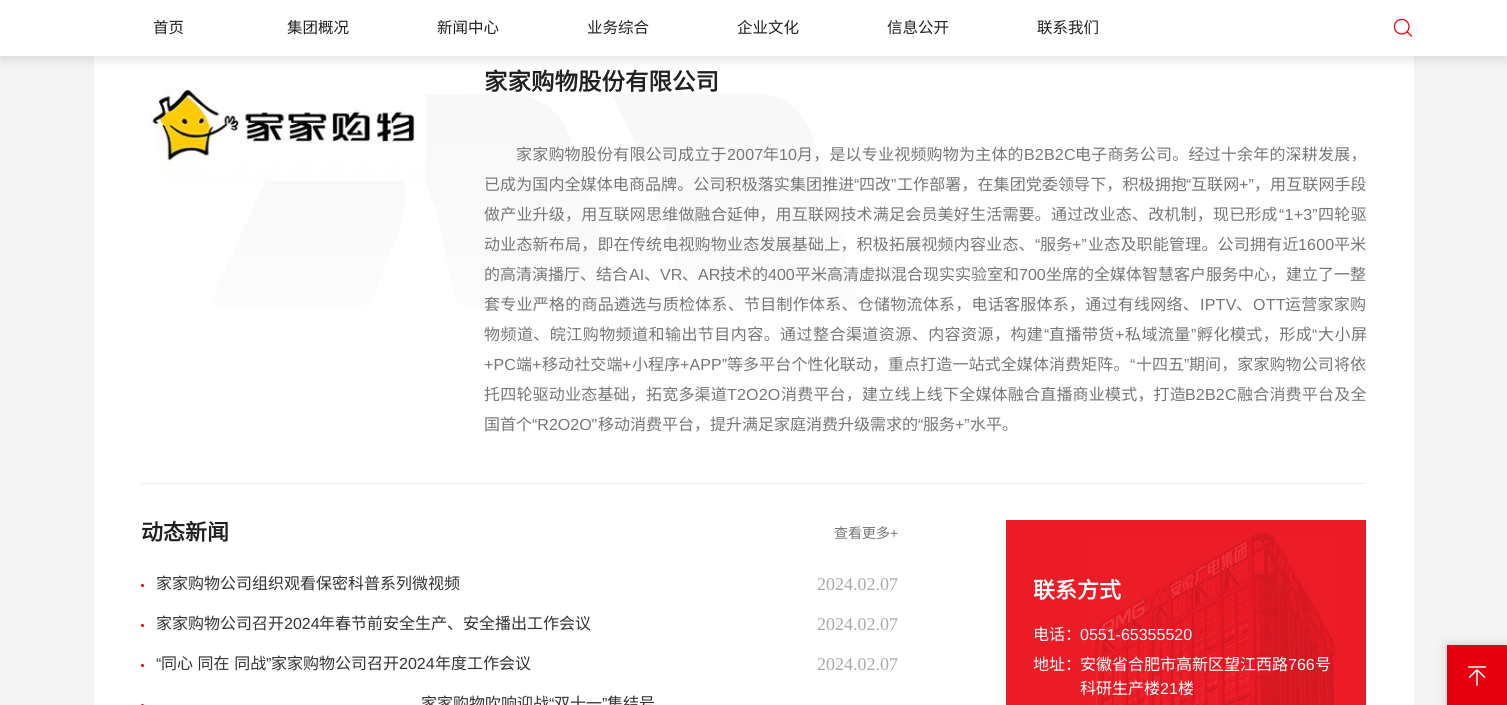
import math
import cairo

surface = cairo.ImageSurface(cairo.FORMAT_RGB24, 1507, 705)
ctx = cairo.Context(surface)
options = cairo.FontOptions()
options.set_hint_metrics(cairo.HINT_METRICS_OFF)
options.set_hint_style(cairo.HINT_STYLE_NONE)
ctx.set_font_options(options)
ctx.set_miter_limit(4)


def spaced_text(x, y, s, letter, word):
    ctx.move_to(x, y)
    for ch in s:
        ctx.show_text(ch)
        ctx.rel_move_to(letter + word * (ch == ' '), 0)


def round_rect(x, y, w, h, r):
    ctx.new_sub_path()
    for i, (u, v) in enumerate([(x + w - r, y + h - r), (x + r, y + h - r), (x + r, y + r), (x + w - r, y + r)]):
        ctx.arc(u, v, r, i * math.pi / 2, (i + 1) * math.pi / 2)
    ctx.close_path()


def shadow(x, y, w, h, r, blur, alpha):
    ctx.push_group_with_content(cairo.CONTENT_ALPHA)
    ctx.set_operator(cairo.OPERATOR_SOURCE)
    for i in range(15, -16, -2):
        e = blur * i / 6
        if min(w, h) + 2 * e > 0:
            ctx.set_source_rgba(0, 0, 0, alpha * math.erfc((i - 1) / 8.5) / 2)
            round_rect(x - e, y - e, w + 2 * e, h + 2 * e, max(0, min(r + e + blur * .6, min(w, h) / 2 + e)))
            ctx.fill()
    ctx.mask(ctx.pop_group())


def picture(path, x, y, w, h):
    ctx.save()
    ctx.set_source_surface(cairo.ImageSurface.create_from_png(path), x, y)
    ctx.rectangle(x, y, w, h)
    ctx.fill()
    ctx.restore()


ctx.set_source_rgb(0.957, 0.957, 0.957)
ctx.paint()
ctx.set_source_rgb(1, 1, 1)
ctx.rectangle(94, 56, 1320, 649)
ctx.fill()
ctx.set_source_rgb(0, 0, 0)
shadow(0, -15, 1507, 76, 0, 5, 0.1)
ctx.set_source_rgb(1, 1, 1)
ctx.rectangle(0, 0, 1507, 56)
ctx.fill()
ctx.select_font_face("Noto Sans CJK SC")
ctx.set_font_size(15.5)
ctx.set_source_rgb(0.133, 0.122, 0.122)
ctx.move_to(153, 33)
ctx.show_text("首页")
ctx.move_to(287, 33)
ctx.show_text("集团概况")
ctx.move_to(437, 33)
ctx.show_text("新闻中心")
ctx.move_to(587, 33)
ctx.show_text("业务综合")
ctx.move_to(737, 33)
ctx.show_text("企业文化")
ctx.move_to(887, 33)
ctx.show_text("信息公开")
ctx.move_to(1037, 33)
ctx.show_text("联系我们")
picture("img1.png", 1393, 18, 20, 19)
picture("img2.png", 212, 93, 644, 212)
ctx.set_source_rgb(0.929, 0.929, 0.929)
ctx.rectangle(141, 483, 1225, 1)
ctx.fill()
picture("img3.png", 149, 89, 277, 92)
ctx.select_font_face("Noto Sans CJK SC", cairo.FONT_SLANT_NORMAL, cairo.FONT_WEIGHT_BOLD)
ctx.set_font_size(23.5)
ctx.set_source_rgb(0.133, 0.122, 0.122)
ctx.move_to(484, 90)
ctx.show_text("家家购物股份有限公司")
ctx.select_font_face("Noto Sans CJK SC")
ctx.set_font_size(16)
ctx.set_source_rgb(0.478, 0.459, 0.459)
spaced_text(516, 160, "家家购物股份有限公司成立于", 0.2, 0)
ctx.select_font_face("Liberation Sans")
spaced_text(727, 160, "2007", 0.2, 0)
ctx.select_font_face("Noto Sans CJK SC")
spaced_text(763, 160, "年", 0.2, 0)
ctx.select_font_face("Liberation Sans")
spaced_text(779, 160, "10", 0.2, 0)
ctx.select_font_face("Noto Sans CJK SC")
spaced_text(797, 160, "月，是以专业视频购物为主体的", 0.2, 0)
ctx.select_font_face("Liberation Sans")
spaced_text(1024, 160, "B2B2C", 0.2, 0)
ctx.select_font_face("Noto Sans CJK SC")
spaced_text(1075, 160, "电子商务公司。经过十余年的深耕发展，", 0.2, 0)
spaced_text(484, 190, "已成为国内全媒体电商品牌。公司积极落实集团推进", 0.1, 0)
ctx.select_font_face("Liberation Sans")
spaced_text(854, 190, "“", 0.1, 0)
ctx.select_font_face("Noto Sans CJK SC")
spaced_text(859, 190, "四改", 0.1, 0)
ctx.select_font_face("Liberation Sans")
spaced_text(891, 190, "”", 0.1, 0)
ctx.select_font_face("Noto Sans CJK SC")
spaced_text(897, 190, "工作部署，在集团党委领导下，积极拥抱", 0.1, 0)
ctx.select_font_face("Liberation Sans")
spaced_text(1186, 190, "“", 0.1, 0)
ctx.select_font_face("Noto Sans CJK SC")
spaced_text(1191, 190, "互联网", 0.1, 0)
ctx.select_font_face("Liberation Sans")
spaced_text(1239, 190, "+”", 0.1, 0)
ctx.select_font_face("Noto Sans CJK SC")
spaced_text(1254, 190, "，用互联网手段", 0.1, 0)
spaced_text(484, 220, "做产业升级，用互联网思维做融合延伸，用互联网技术满足会员美好生活需要。通过改业态、改机制，现已形成", 0.2, 0)
ctx.select_font_face("Liberation Sans")
spaced_text(1279, 220, "“1+3”", 0.2, 0)
ctx.select_font_face("Noto Sans CJK SC")
spaced_text(1318, 220, "四轮驱", 0.2, 0)
spaced_text(484, 250, "动业态新布局，即在传统电视购物业态发展基础上，积极拓展视频内容业态、", 0.2, 0)
ctx.select_font_face("Liberation Sans")
spaced_text(1035, 250, "“", 0.2, 0)
ctx.select_font_face("Noto Sans CJK SC")
spaced_text(1040, 250, "服务", 0.2, 0)
ctx.select_font_face("Liberation Sans")
spaced_text(1072, 250, "+”", 0.2, 0)
ctx.select_font_face("Noto Sans CJK SC")
spaced_text(1088, 250, "业态及职能管理。公司拥有近", 0.2, 0)
ctx.select_font_face("Liberation Sans")
spaced_text(1298, 250, "1600", 0.2, 0)
ctx.select_font_face("Noto Sans CJK SC")
spaced_text(1334, 250, "平米", 0.2, 0)
ctx.move_to(484, 280)
ctx.show_text("的高清演播厅、结合")
ctx.select_font_face("Liberation Sans")
ctx.move_to(629, 280)
ctx.show_text("AI")
ctx.select_font_face("Noto Sans CJK SC")
ctx.move_to(644, 280)
ctx.show_text("、")
ctx.select_font_face("Liberation Sans")
ctx.move_to(660, 280)
ctx.show_text("VR")
ctx.select_font_face("Noto Sans CJK SC")
ctx.move_to(682, 280)
ctx.show_text("、")
ctx.select_font_face("Liberation Sans")
ctx.move_to(698, 280)
ctx.show_text("AR")
ctx.select_font_face("Noto Sans CJK SC")
ctx.move_to(720, 280)
ctx.show_text("技术的")
ctx.select_font_face("Liberation Sans")
ctx.move_to(768, 280)
ctx.show_text("400")
ctx.select_font_face("Noto Sans CJK SC")
ctx.move_to(795, 280)
ctx.show_text("平米高清虚拟混合现实实验室和")
ctx.select_font_face("Liberation Sans")
ctx.move_to(1019, 280)
ctx.show_text("700")
ctx.select_font_face("Noto Sans CJK SC")
ctx.move_to(1046, 280)
ctx.show_text("坐席的全媒体智慧客户服务中心，建立了一整")
spaced_text(484, 310, "套专业严格的商品遴选与质检体系、节目制作体系、仓储物流体系，电话客服体系，通过有线网络、", 0.25, 0)
ctx.select_font_face("Liberation Sans")
spaced_text(1200, 310, "IPTV", 0.25, 0)
ctx.select_font_face("Noto Sans CJK SC")
spaced_text(1236, 310, "、", 0.25, 0)
ctx.select_font_face("Liberation Sans")
spaced_text(1253, 310, "OTT", 0.25, 0)
ctx.select_font_face("Noto Sans CJK SC")
spaced_text(1285, 310, "运营家家购", 0.25, 0)
spaced_text(484, 340, "物频道、皖江购物频道和输出节目内容。通过整合渠道资源、内容资源，构建", 0.45, 0)
ctx.select_font_face("Liberation Sans")
spaced_text(1044, 340, "“", 0.45, 0)
ctx.select_font_face("Noto Sans CJK SC")
spaced_text(1049, 340, "直播带货", 0.45, 0)
ctx.select_font_face("Liberation Sans")
spaced_text(1115, 340, "+", 0.45, 0)
ctx.select_font_face("Noto Sans CJK SC")
spaced_text(1125, 340, "私域流量", 0.45, 0)
ctx.select_font_face("Liberation Sans")
spaced_text(1191, 340, "”", 0.45, 0)
ctx.select_font_face("Noto Sans CJK SC")
spaced_text(1197, 340, "孵化模式，形成", 0.45, 0)
ctx.select_font_face("Liberation Sans")
spaced_text(1312, 340, "“", 0.45, 0)
ctx.select_font_face("Noto Sans CJK SC")
spaced_text(1318, 340, "大小屏", 0.45, 0)
ctx.select_font_face("Liberation Sans")
spaced_text(484, 370, "+PC", 0.1, 0)
ctx.select_font_face("Noto Sans CJK SC")
spaced_text(516, 370, "端", 0.1, 0)
ctx.select_font_face("Liberation Sans")
spaced_text(532, 370, "+", 0.1, 0)
ctx.select_font_face("Noto Sans CJK SC")
spaced_text(542, 370, "移动社交端", 0.1, 0)
ctx.select_font_face("Liberation Sans")
spaced_text(622, 370, "+", 0.1, 0)
ctx.select_font_face("Noto Sans CJK SC")
spaced_text(632, 370, "小程序", 0.1, 0)
ctx.select_font_face("Liberation Sans")
spaced_text(680, 370, "+APP”", 0.1, 0)
ctx.select_font_face("Noto Sans CJK SC")
spaced_text(727, 370, "等多平台个性化联动，重点打造一站式全媒体消费矩阵。", 0.1, 0)
ctx.select_font_face("Liberation Sans")
spaced_text(1130, 370, "“", 0.1, 0)
ctx.select_font_face("Noto Sans CJK SC")
spaced_text(1136, 370, "十四五", 0.1, 0)
ctx.select_font_face("Liberation Sans")
spaced_text(1184, 370, "”", 0.1, 0)
ctx.select_font_face("Noto Sans CJK SC")
spaced_text(1189, 370, "期间，家家购物公司将依", 0.1, 0)
spaced_text(484, 400, "托四轮驱动业态基础，拓宽多渠道", 0.2, 0)
ctx.select_font_face("Liberation Sans")
spaced_text(727, 400, "T2O2O", 0.2, 0)
ctx.select_font_face("Noto Sans CJK SC")
spaced_text(781, 400, "消费平台，建立线上线下全媒体融合直播商业模式，打造", 0.2, 0)
ctx.select_font_face("Liberation Sans")
spaced_text(1185, 400, "B2B2C", 0.2, 0)
ctx.select_font_face("Noto Sans CJK SC")
spaced_text(1237, 400, "融合消费平台及全", 0.2, 0)
ctx.move_to(484, 430)
ctx.show_text("国首个")
ctx.select_font_face("Liberation Sans")
ctx.move_to(532, 430)
ctx.show_text("“R2O2O\"")
ctx.select_font_face("Noto Sans CJK SC")
ctx.move_to(598, 430)
ctx.show_text("移动消费平台，提升满足家庭消费升级需求的")
ctx.select_font_face("Liberation Sans")
ctx.move_to(918, 430)
ctx.show_text("“")
ctx.select_font_face("Noto Sans CJK SC")
ctx.move_to(923, 430)
ctx.show_text("服务")
ctx.select_font_face("Liberation Sans")
ctx.move_to(955, 430)
ctx.show_text("+”")
ctx.select_font_face("Noto Sans CJK SC")
ctx.move_to(970, 430)
ctx.show_text("水平。")
ctx.select_font_face("Noto Sans CJK SC", cairo.FONT_SLANT_NORMAL, cairo.FONT_WEIGHT_BOLD)
ctx.set_font_size(22)
ctx.set_source_rgb(0.133, 0.122, 0.122)
ctx.move_to(141, 540)
ctx.show_text("动态新闻")
ctx.select_font_face("Noto Sans CJK SC")
ctx.set_font_size(14)
ctx.set_source_rgb(0.478, 0.459, 0.459)
ctx.move_to(834, 538)
ctx.show_text("查看更多")
ctx.select_font_face("Liberation Sans")
ctx.move_to(890, 538)
ctx.show_text("+")
ctx.set_source_rgb(0.902, 0, 0.059)
ctx.new_path()
ctx.arc(142.5, 585.5, 1.5, 0, 2 * math.pi)
ctx.fill()
ctx.select_font_face("Noto Sans CJK SC")
ctx.set_font_size(16)
ctx.set_source_rgb(0.2, 0.2, 0.2)
ctx.move_to(156, 589)
ctx.show_text("家家购物公司组织观看保密科普系列微视频")
ctx.select_font_face("Liberation Serif")
ctx.set_font_size(18)
ctx.set_source_rgb(0.686, 0.655, 0.655)
ctx.move_to(817, 590)
ctx.show_text("2024.02.07")
ctx.set_source_rgb(0.902, 0, 0.059)
ctx.new_path()
ctx.arc(142.5, 625.5, 1.5, 0, 2 * math.pi)
ctx.fill()
ctx.select_font_face("Noto Sans CJK SC")
ctx.set_font_size(16)
ctx.set_source_rgb(0.2, 0.2, 0.2)
ctx.move_to(156, 629)
ctx.show_text("家家购物公司召开")
ctx.select_font_face("Liberation Sans")
ctx.move_to(284, 629)
ctx.show_text("2024")
ctx.select_font_face("Noto Sans CJK SC")
ctx.move_to(319, 629)
ctx.show_text("年春节前安全生产、安全播出工作会议")
ctx.select_font_face("Liberation Serif")
ctx.set_font_size(18)
ctx.set_source_rgb(0.686, 0.655, 0.655)
ctx.move_to(817, 630)
ctx.show_text("2024.02.07")
ctx.set_source_rgb(0.902, 0, 0.059)
ctx.new_path()
ctx.arc(142.5, 665.5, 1.5, 0, 2 * math.pi)
ctx.fill()
ctx.select_font_face("Liberation Sans")
ctx.set_font_size(16)
ctx.set_source_rgb(0.2, 0.2, 0.2)
ctx.move_to(156, 669)
ctx.show_text("“")
ctx.select_font_face("Noto Sans CJK SC")
spaced_text(161, 669, "同心 同在 同战", 0, 1)
ctx.select_font_face("Liberation Sans")
ctx.move_to(266, 669)
ctx.show_text("”")
ctx.select_font_face("Noto Sans CJK SC")
ctx.move_to(271, 669)
ctx.show_text("家家购物公司召开")
ctx.select_font_face("Liberation Sans")
ctx.move_to(399, 669)
ctx.show_text("2024")
ctx.select_font_face("Noto Sans CJK SC")
ctx.move_to(435, 669)
ctx.show_text("年度工作会议")
ctx.select_font_face("Liberation Serif")
ctx.set_font_size(18)
ctx.set_source_rgb(0.686, 0.655, 0.655)
ctx.move_to(817, 670)
ctx.show_text("2024.02.07")
ctx.select_font_face("Noto Sans CJK SC")
ctx.set_font_size(16)
ctx.set_source_rgb(0.2, 0.2, 0.2)
ctx.move_to(421, 709)
ctx.show_text("家家购物吹响迎战")
ctx.select_font_face("Liberation Sans")
ctx.move_to(549, 709)
ctx.show_text("“")
ctx.select_font_face("Noto Sans CJK SC")
ctx.move_to(554, 709)
ctx.show_text("双十一")
ctx.select_font_face("Liberation Sans")
ctx.move_to(602, 709)
ctx.show_text("”")
ctx.select_font_face("Noto Sans CJK SC")
ctx.move_to(607, 709)
ctx.show_text("集结号")
ctx.set_source_rgb(0.902, 0, 0.059)
ctx.new_path()
ctx.arc(142.5, 705.5, 1.5, 0, 2 * math.pi)
ctx.fill()
ctx.set_source_rgb(0.925, 0.11, 0.153)
ctx.rectangle(1006, 520, 360, 185)
ctx.fill()
picture("img4.png", 1090, 533, 247, 172)
ctx.select_font_face("Noto Sans CJK SC", cairo.FONT_SLANT_NORMAL, cairo.FONT_WEIGHT_BOLD)
ctx.set_font_size(22)
ctx.set_source_rgb(1, 1, 1)
ctx.move_to(1033, 598)
ctx.show_text("联系方式")
ctx.select_font_face("Noto Sans CJK SC")
ctx.set_font_size(16)
ctx.move_to(1033, 640)
ctx.show_text("电话：")
ctx.select_font_face("Liberation Sans")
ctx.move_to(1080, 640)
ctx.show_text("0551-65355520")
ctx.select_font_face("Noto Sans CJK SC")
ctx.move_to(1033, 670)
ctx.show_text("地址：")
ctx.move_to(1080, 670)
ctx.show_text("安徽省合肥市高新区望江西路")
ctx.select_font_face("Liberation Sans")
ctx.move_to(1288, 670)
ctx.show_text("766")
ctx.select_font_face("Noto Sans CJK SC")
ctx.move_to(1315, 670)
ctx.show_text("号")
ctx.move_to(1080, 694)
ctx.show_text("科研生产楼")
ctx.select_font_face("Liberation Sans")
ctx.move_to(1160, 694)
ctx.show_text("21")
ctx.select_font_face("Noto Sans CJK SC")
ctx.move_to(1178, 694)
ctx.show_text("楼")
ctx.set_source_rgb(0, 0, 0)
shadow(1447, 645, 60, 60, 0, 5, 0.2)
ctx.set_source_rgb(0.902, 0, 0.059)
ctx.rectangle(1447, 645, 60, 60)
ctx.fill()
picture("img5.png", 1468, 666, 18, 20)
surface.write_to_png("page.png")
